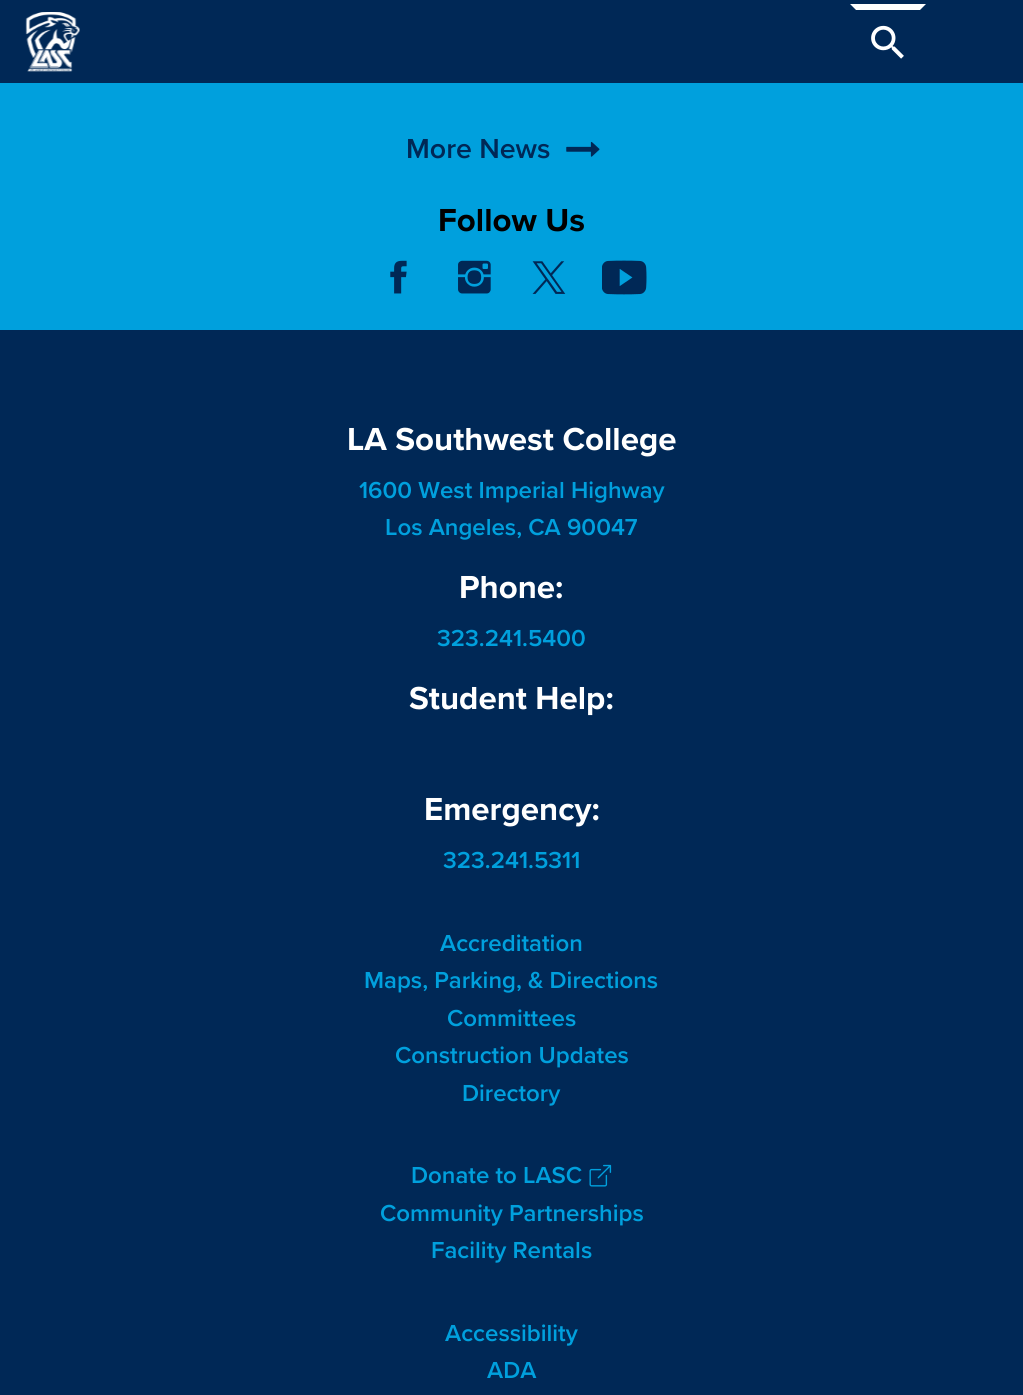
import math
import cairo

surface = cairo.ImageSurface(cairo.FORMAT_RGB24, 1023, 1395)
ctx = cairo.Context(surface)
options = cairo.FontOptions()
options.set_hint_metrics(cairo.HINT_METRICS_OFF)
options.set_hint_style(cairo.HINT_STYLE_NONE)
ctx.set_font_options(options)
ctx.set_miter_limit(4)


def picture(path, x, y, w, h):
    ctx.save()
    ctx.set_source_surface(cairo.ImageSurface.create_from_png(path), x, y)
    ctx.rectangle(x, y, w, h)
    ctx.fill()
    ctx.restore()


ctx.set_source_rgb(0, 0.627, 0.867)
ctx.paint()
ctx.set_source_rgb(0, 0.157, 0.337)
ctx.rectangle(0, 0, 1023, 83)
ctx.fill()
picture("img1.png", 25, 12, 55, 60)
picture("img2.png", 871, 25, 33, 34)
ctx.set_source_rgb(1, 1, 1)
ctx.new_path()
ctx.move_to(850, 4)
ctx.line_to(926, 4)
ctx.line_to(920, 10)
ctx.line_to(856, 10)
ctx.close_path()
ctx.fill()
ctx.select_font_face("Proxima Nova SemiBold")
ctx.set_font_size(28.5)
ctx.set_source_rgb(0, 0.157, 0.337)
ctx.move_to(406, 158)
ctx.show_text("More News")
picture("img3.png", 566, 141, 34, 16)
ctx.select_font_face("Proxima Nova", cairo.FONT_SLANT_NORMAL, cairo.FONT_WEIGHT_BOLD)
ctx.set_font_size(33)
ctx.set_source_rgb(0, 0, 0)
ctx.move_to(438, 231)
ctx.show_text("Follow Us")
picture("img4.png", 390, 260, 17, 34)
picture("img5.png", 458, 260, 33, 34)
picture("img6.png", 532, 261, 34, 33)
picture("img7.png", 602, 260, 45, 35)
ctx.set_source_rgb(0, 0.157, 0.337)
ctx.rectangle(0, 330, 1023, 1065)
ctx.fill()
ctx.set_source_rgb(1, 1, 1)
ctx.move_to(347, 450)
ctx.show_text("LA Southwest College")
ctx.select_font_face("Proxima Nova SemiBold")
ctx.set_font_size(24)
ctx.set_source_rgb(0, 0.627, 0.867)
ctx.move_to(359, 498)
ctx.show_text("1600 West Imperial Highway")
ctx.move_to(385, 535)
ctx.show_text("Los Angeles, CA 90047")
ctx.select_font_face("Proxima Nova", cairo.FONT_SLANT_NORMAL, cairo.FONT_WEIGHT_BOLD)
ctx.set_font_size(33)
ctx.set_source_rgb(1, 1, 1)
ctx.move_to(459, 598)
ctx.show_text("Phone:")
ctx.select_font_face("Proxima Nova SemiBold")
ctx.set_font_size(24)
ctx.set_source_rgb(0, 0.627, 0.867)
ctx.move_to(437, 646)
ctx.show_text("323.241.5400")
ctx.select_font_face("Proxima Nova", cairo.FONT_SLANT_NORMAL, cairo.FONT_WEIGHT_BOLD)
ctx.set_font_size(33)
ctx.set_source_rgb(1, 1, 1)
ctx.move_to(409, 709)
ctx.show_text("Student Help:")
ctx.move_to(424, 820)
ctx.show_text("Emergency:")
ctx.select_font_face("Proxima Nova SemiBold")
ctx.set_font_size(24)
ctx.set_source_rgb(0, 0.627, 0.867)
ctx.move_to(443, 868)
ctx.show_text("323.241.5311")
ctx.move_to(440, 951)
ctx.show_text("Accreditation")
ctx.move_to(364, 988)
ctx.show_text("Maps, Parking, & Directions")
ctx.move_to(447, 1026)
ctx.show_text("Committees")
ctx.move_to(395, 1063)
ctx.show_text("Construction Updates")
ctx.move_to(462, 1101)
ctx.show_text("Directory")
ctx.move_to(411, 1183)
ctx.show_text("Donate to LASC")
picture("img8.png", 589, 1164, 23, 23)
ctx.move_to(380, 1221)
ctx.show_text("Community Partnerships")
ctx.move_to(431, 1258)
ctx.show_text("Facility Rentals")
ctx.move_to(445, 1341)
ctx.show_text("Accessibility")
ctx.move_to(487, 1378)
ctx.show_text("ADA")
surface.write_to_png("page.png")
